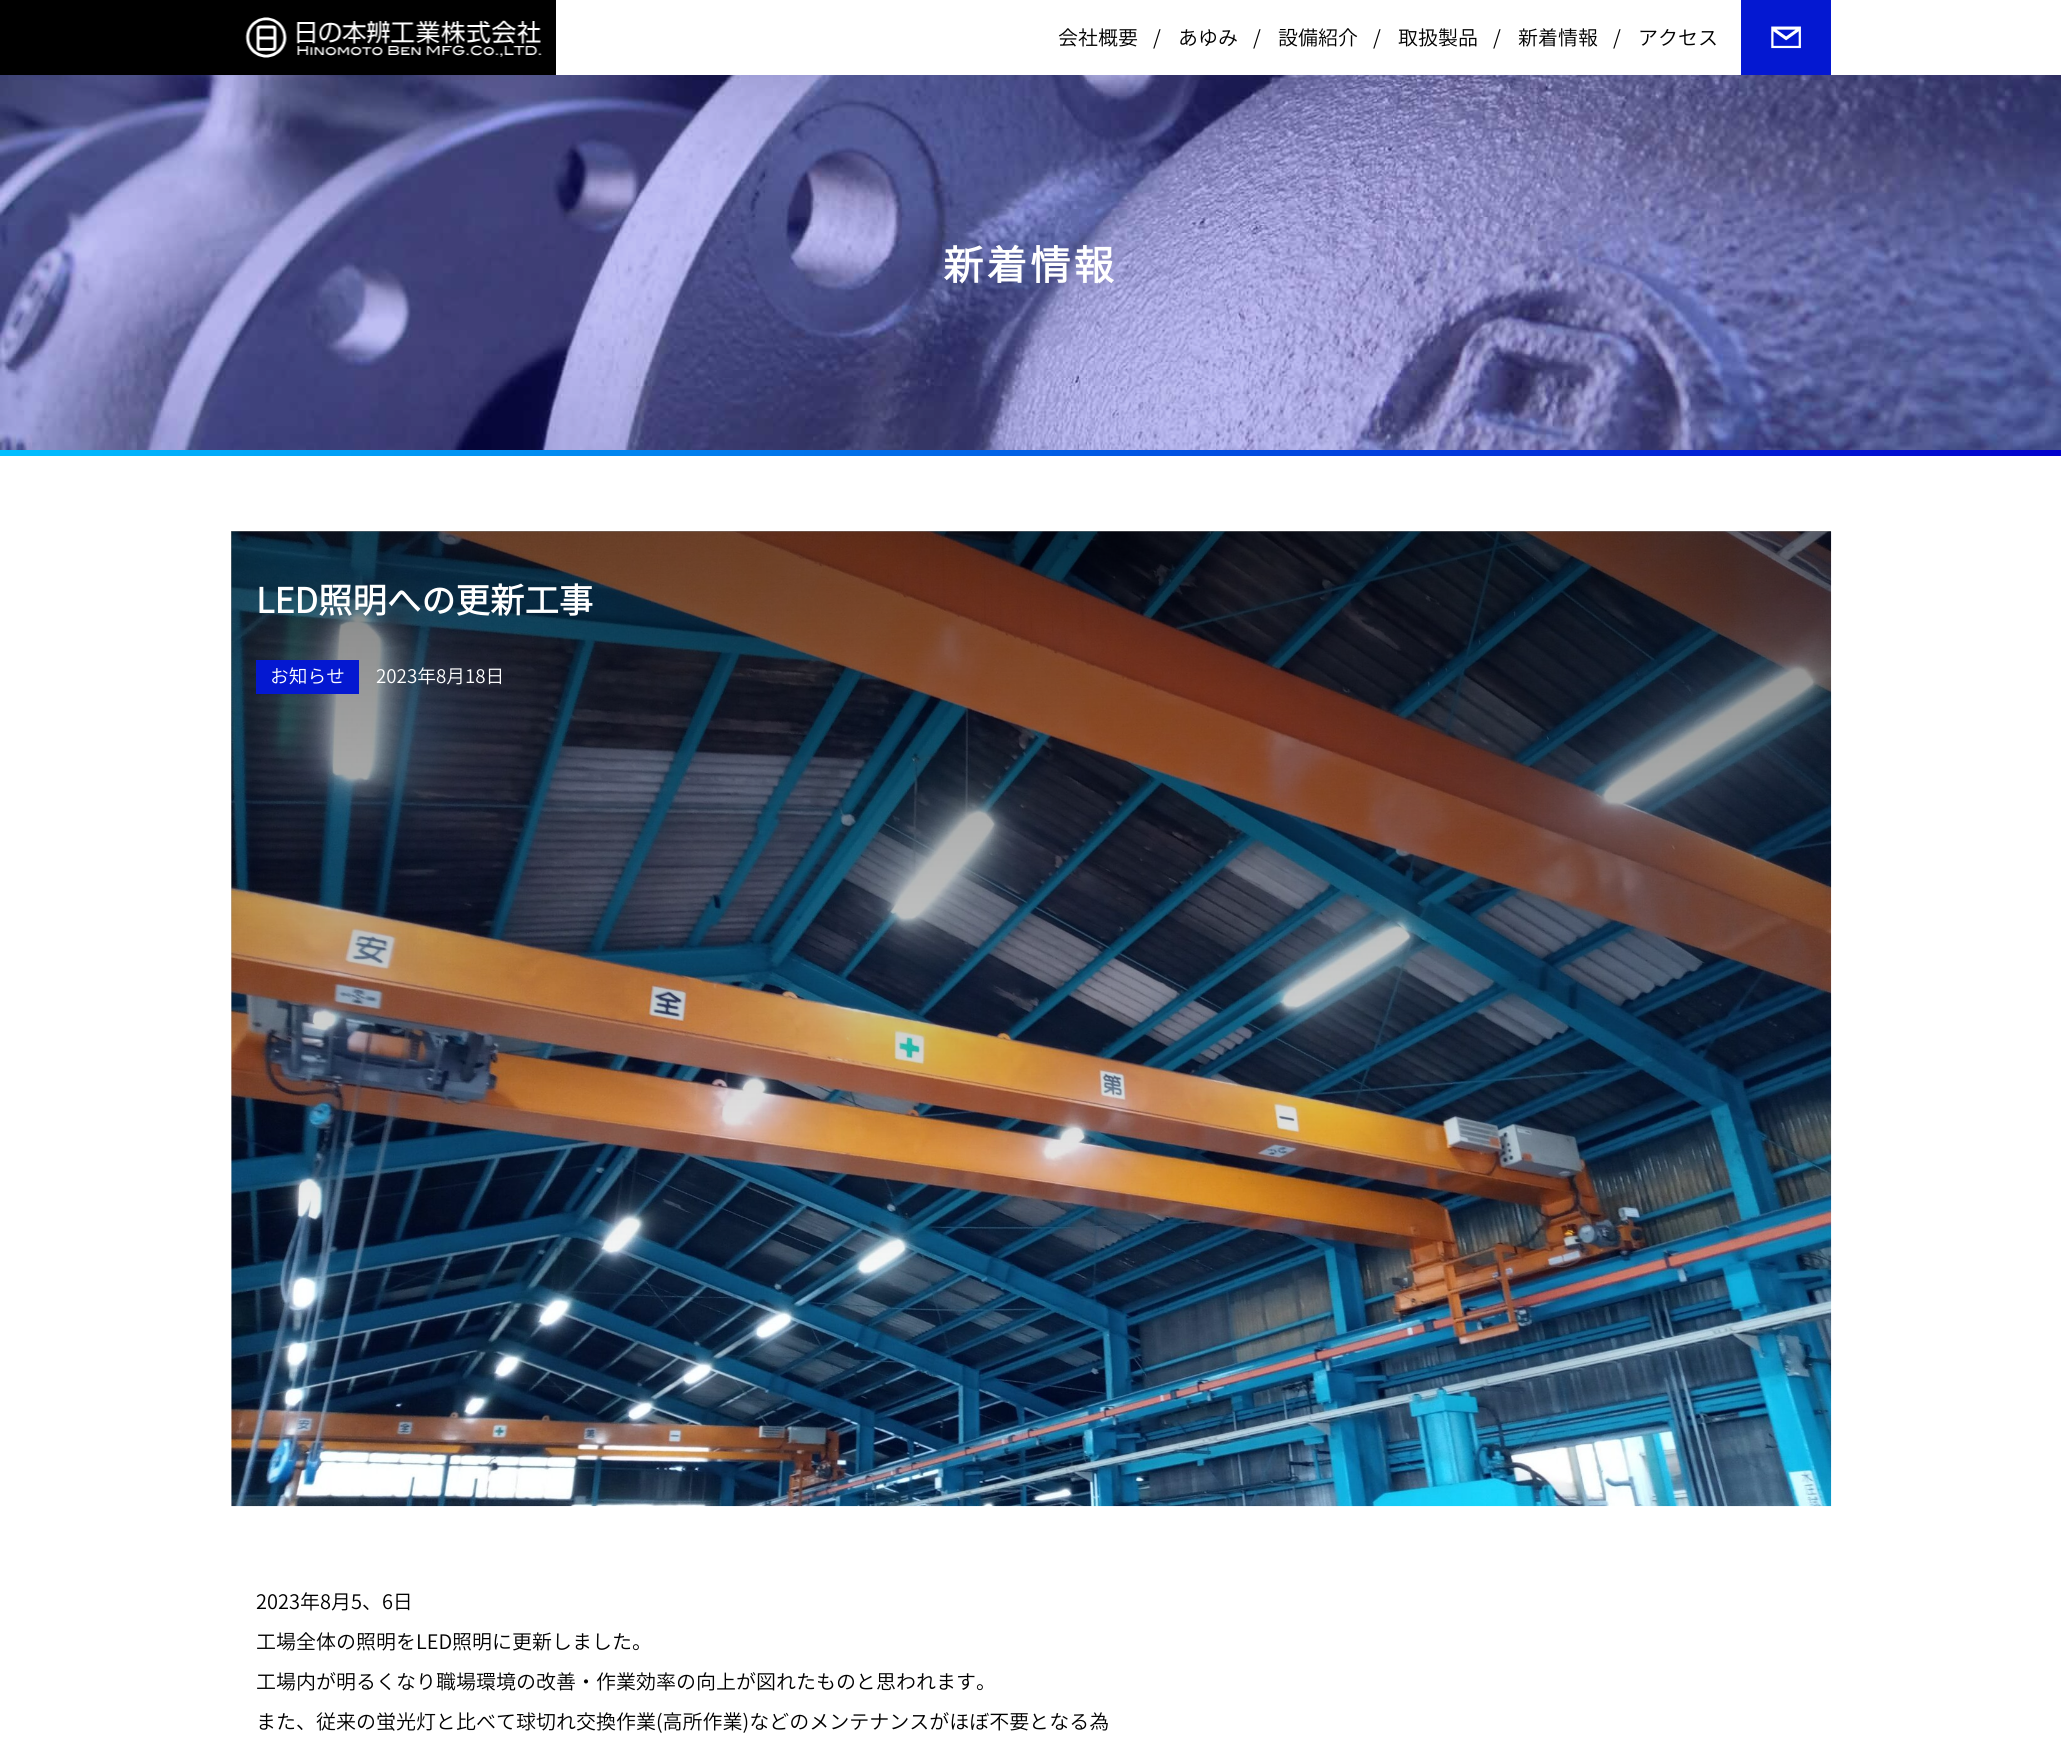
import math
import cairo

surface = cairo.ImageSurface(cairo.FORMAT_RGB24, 2061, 1755)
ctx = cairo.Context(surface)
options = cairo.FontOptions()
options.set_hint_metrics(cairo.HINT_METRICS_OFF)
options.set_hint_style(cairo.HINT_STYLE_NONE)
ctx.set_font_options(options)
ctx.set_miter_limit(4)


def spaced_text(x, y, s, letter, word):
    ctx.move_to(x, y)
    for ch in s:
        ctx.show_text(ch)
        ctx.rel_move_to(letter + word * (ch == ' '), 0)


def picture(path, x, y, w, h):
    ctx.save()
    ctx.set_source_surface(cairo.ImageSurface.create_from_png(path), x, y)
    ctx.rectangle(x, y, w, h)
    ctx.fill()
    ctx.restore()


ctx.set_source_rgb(1, 1, 1)
ctx.paint()
ctx.set_source_rgb(0, 0, 0)
ctx.rectangle(0, 0, 556, 75)
ctx.fill()
picture("img1.png", 245, 17, 297, 41)
ctx.select_font_face("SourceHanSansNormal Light")
ctx.set_font_size(20)
ctx.move_to(1058, 45)
ctx.show_text("会社概要")
ctx.move_to(1153, 45)
ctx.show_text("/")
ctx.move_to(1178, 45)
ctx.show_text("あゆみ")
ctx.move_to(1253, 45)
ctx.show_text("/")
ctx.move_to(1278, 45)
ctx.show_text("設備紹介")
ctx.move_to(1373, 45)
ctx.show_text("/")
ctx.move_to(1398, 45)
ctx.show_text("取扱製品")
ctx.move_to(1493, 45)
ctx.show_text("/")
ctx.move_to(1518, 45)
ctx.show_text("新着情報")
ctx.move_to(1613, 45)
ctx.show_text("/")
ctx.move_to(1638, 45)
ctx.show_text("アクセス")
ctx.set_source_rgb(0.016, 0.094, 0.82)
ctx.rectangle(1741, 0, 90, 75)
ctx.fill()
picture("img2.png", 1771, 26, 30, 23)
gradient = cairo.LinearGradient(2061, 228, 0, 228)
gradient.add_color_stop_rgba(0, 0, 0, 0.804, 1)
gradient.add_color_stop_rgba(1, 0, 0.749, 1, 1)
ctx.set_source(gradient)
ctx.rectangle(0, 450, 2061, 6)
ctx.fill()
picture("img3.png", 0, 75, 2061, 375)
ctx.select_font_face("SourceHanSansNormal", cairo.FONT_SLANT_NORMAL, cairo.FONT_WEIGHT_BOLD)
ctx.set_font_size(40.5)
ctx.set_source_rgb(1, 1, 1)
spaced_text(943, 280, "新着情報", 3, 0)
picture("img4.png", 231, 531, 1601, 976)
gradient = cairo.LinearGradient(1031, 531, 1031, 1506)
gradient.add_color_stop_rgba(0, 0, 0, 0, 0.5)
gradient.add_color_stop_rgba(0.8, 0, 0, 0, 0)
gradient.add_color_stop_rgba(1, 0, 0, 0, 0)
ctx.set_source(gradient)
ctx.rectangle(231, 531, 1600, 746)
ctx.fill()
ctx.set_font_size(34.4)
ctx.set_source_rgb(1, 1, 1)
ctx.move_to(256, 613)
ctx.show_text("LED照明への更新工事")
ctx.set_source_rgb(0.016, 0.094, 0.82)
ctx.rectangle(256, 660, 103, 34)
ctx.fill()
ctx.select_font_face("SourceHanSansNormal Light")
ctx.set_font_size(18.75)
ctx.set_source_rgb(1, 1, 1)
ctx.move_to(270, 683)
ctx.show_text("お知らせ")
ctx.move_to(376, 683)
ctx.show_text("2023年8月18日")
ctx.set_font_size(20)
ctx.set_source_rgb(0, 0, 0)
ctx.move_to(256, 1609)
ctx.show_text("2023年8月5、6日")
ctx.move_to(256, 1649)
ctx.show_text("工場全体の照明をLED照明に更新しました。")
ctx.move_to(256, 1689)
ctx.show_text("工場内が明るくなり職場環境の改善・作業効率の向上が図れたものと思われます。")
ctx.move_to(256, 1729)
ctx.show_text("また、従来の蛍光灯と比べて球切れ交換作業(高所作業)などのメンテナンスがほぼ不要となる為")
surface.write_to_png("page.png")
